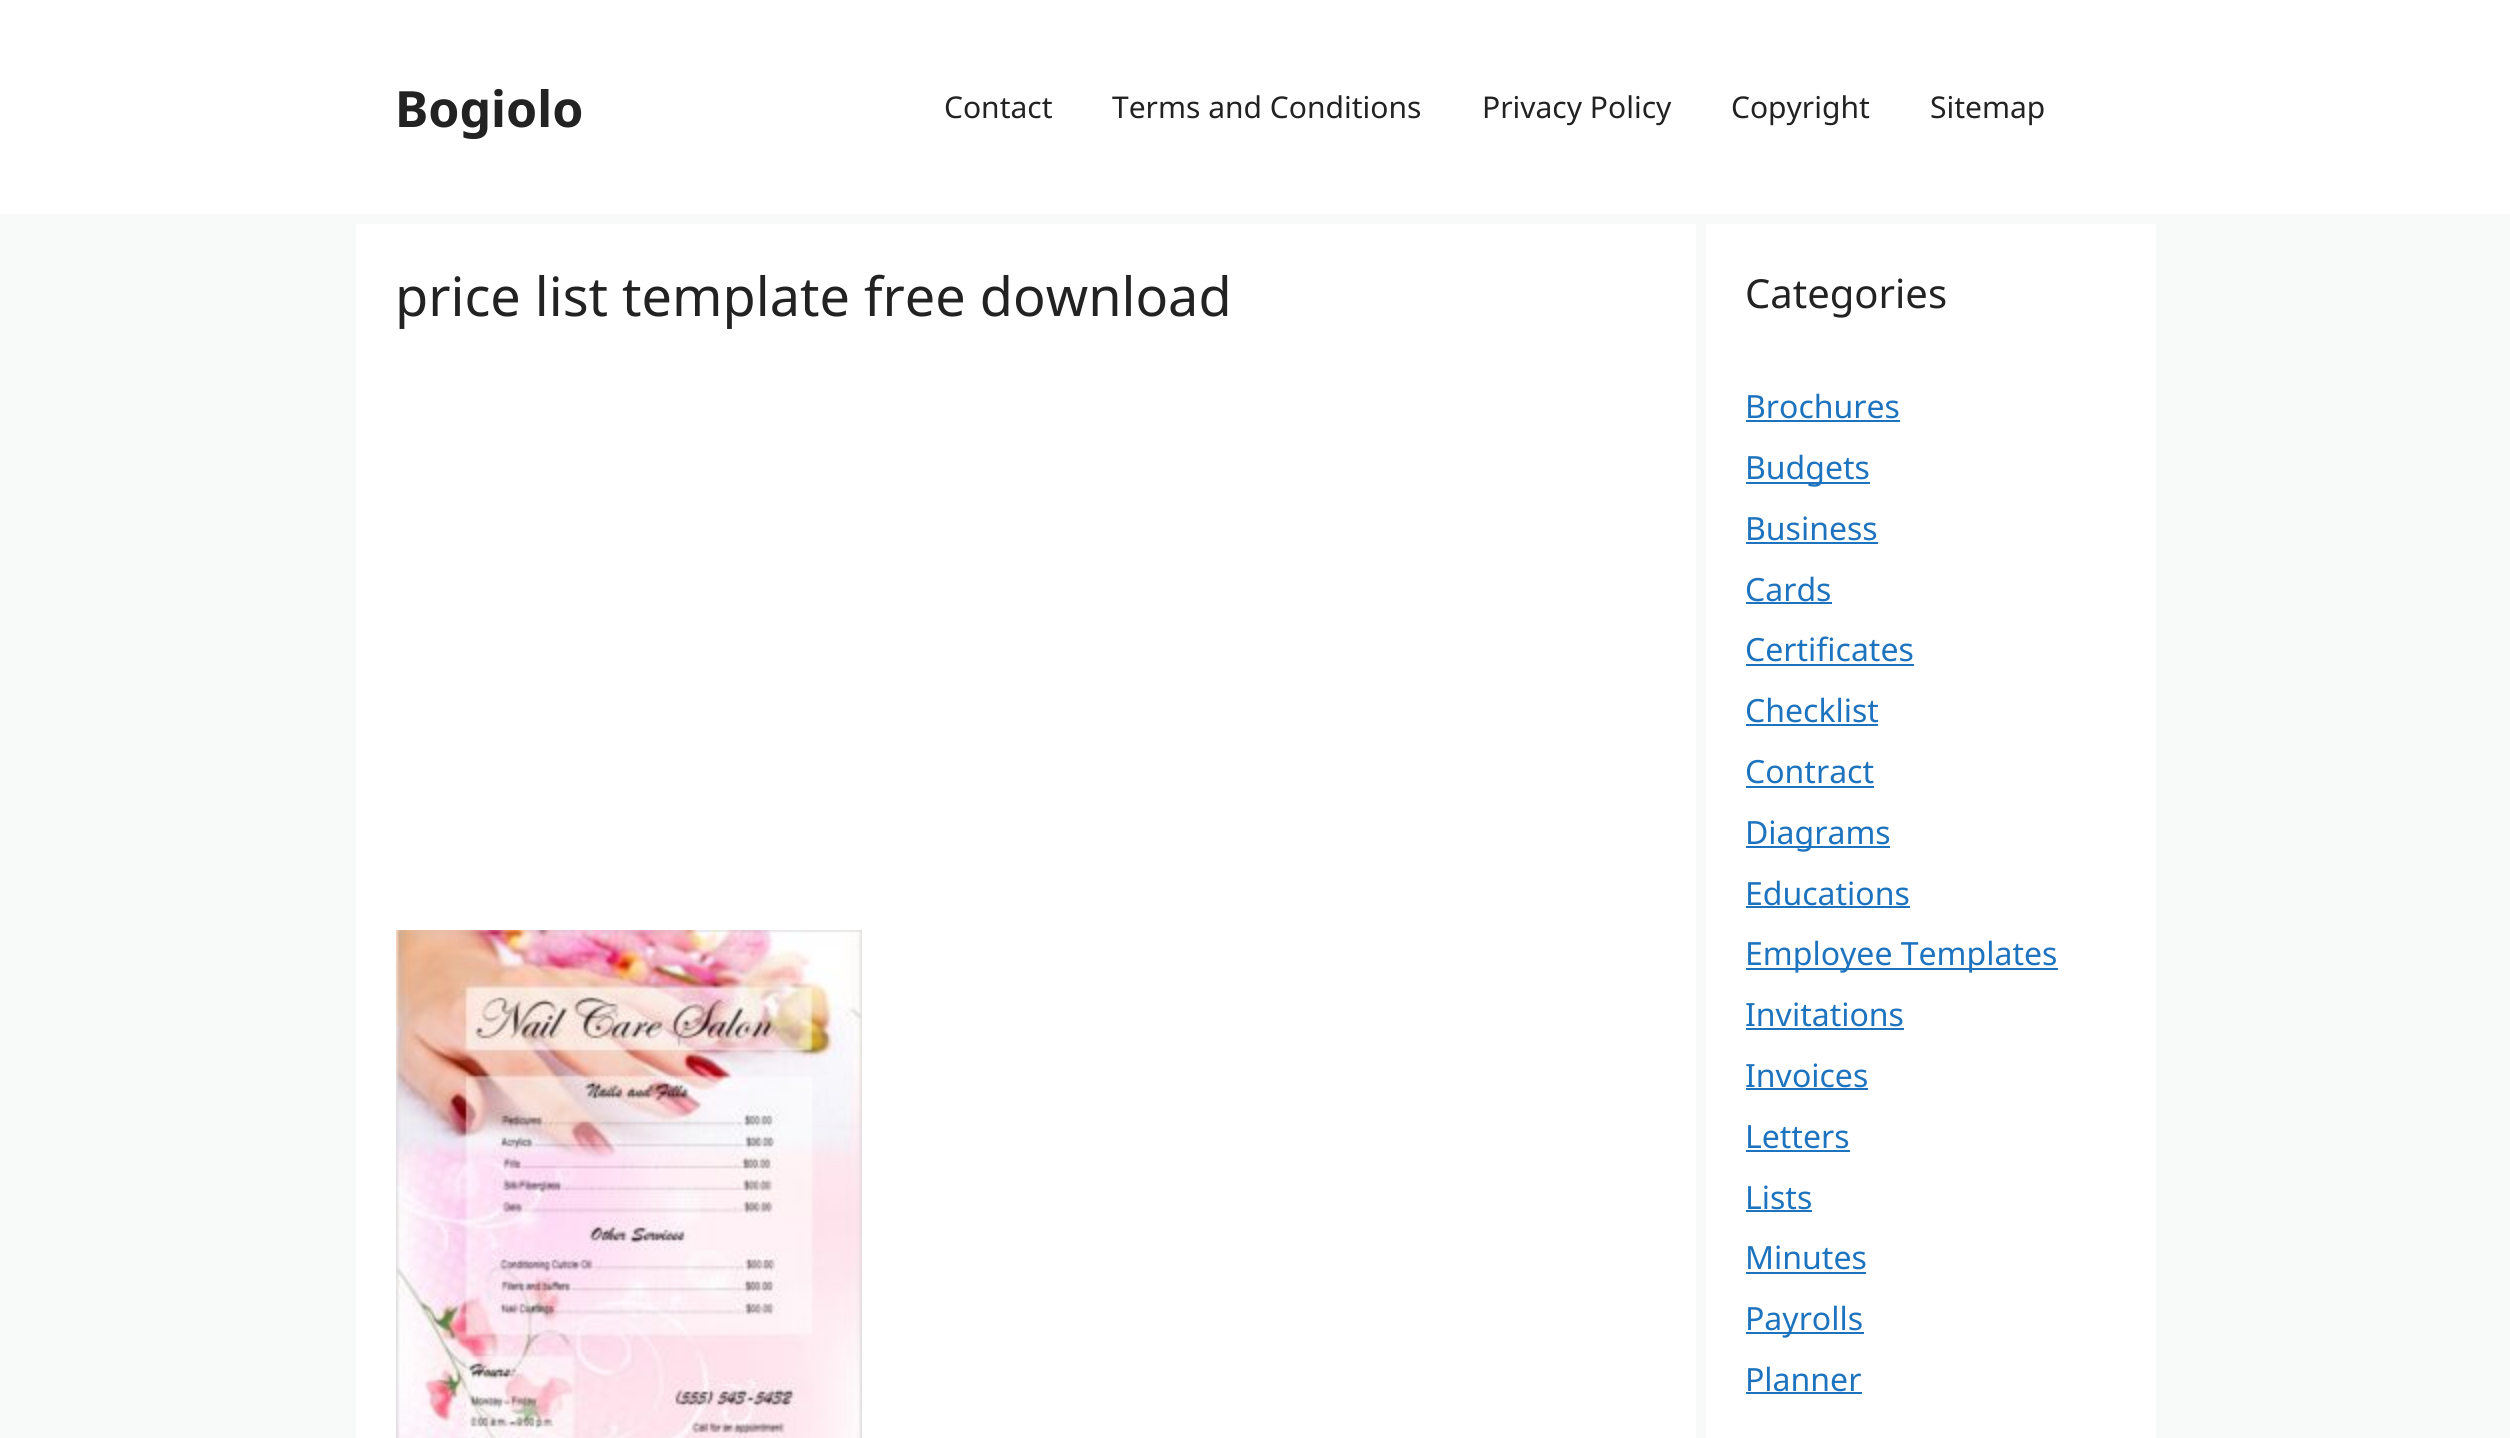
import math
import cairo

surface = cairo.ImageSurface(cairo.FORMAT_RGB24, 2510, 1438)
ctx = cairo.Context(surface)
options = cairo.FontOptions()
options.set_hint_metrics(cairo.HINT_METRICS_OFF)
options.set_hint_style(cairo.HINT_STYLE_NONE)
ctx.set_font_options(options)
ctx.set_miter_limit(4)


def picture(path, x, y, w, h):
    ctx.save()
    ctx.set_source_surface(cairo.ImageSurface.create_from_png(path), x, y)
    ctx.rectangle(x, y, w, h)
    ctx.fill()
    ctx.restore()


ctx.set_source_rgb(0.969, 0.973, 0.976)
ctx.paint()
ctx.set_source_rgb(1, 1, 1)
ctx.rectangle(0, 0, 2510, 214)
ctx.fill()
ctx.select_font_face("Noto Sans", cairo.FONT_SLANT_NORMAL, cairo.FONT_WEIGHT_BOLD)
ctx.set_font_size(50)
ctx.set_source_rgb(0.133, 0.133, 0.133)
ctx.move_to(395, 127)
ctx.show_text("Bogiolo")
ctx.select_font_face("Noto Sans")
ctx.set_font_size(30)
ctx.move_to(944, 118)
ctx.show_text("Contact")
ctx.move_to(1112, 118)
ctx.show_text("Terms and Conditions")
ctx.move_to(1482, 118)
ctx.show_text("Privacy Policy")
ctx.move_to(1731, 118)
ctx.show_text("Copyright")
ctx.move_to(1930, 118)
ctx.show_text("Sitemap")
ctx.set_source_rgb(1, 1, 1)
ctx.rectangle(356, 224, 1340, 1214)
ctx.fill()
ctx.set_font_size(54)
ctx.set_source_rgb(0.133, 0.133, 0.133)
ctx.move_to(395, 316)
ctx.show_text("price list template free download")
picture("img1.png", 396, 930, 466, 508)
ctx.set_source_rgb(1, 1, 1)
ctx.rectangle(1706, 224, 450, 1214)
ctx.fill()
ctx.set_font_size(40)
ctx.set_source_rgb(0.133, 0.133, 0.133)
ctx.move_to(1745, 308)
ctx.show_text("Categories")
ctx.set_font_size(32)
ctx.set_source_rgb(0.118, 0.451, 0.745)
ctx.move_to(1745, 418)
ctx.show_text("Brochures")
ctx.rectangle(1746, 420, 154, 2)
ctx.fill()
ctx.rectangle(1746, 482, 124, 2)
ctx.fill()
ctx.move_to(1745, 479)
ctx.show_text("Budgets")
ctx.move_to(1745, 540)
ctx.show_text("Business")
ctx.rectangle(1746, 542, 132, 2)
ctx.fill()
ctx.move_to(1745, 601)
ctx.show_text("Cards")
ctx.rectangle(1746, 602, 86, 2)
ctx.fill()
ctx.move_to(1745, 661)
ctx.show_text("Certificates")
ctx.rectangle(1746, 664, 168, 2)
ctx.fill()
ctx.move_to(1745, 722)
ctx.show_text("Checklist")
ctx.rectangle(1746, 724, 132, 2)
ctx.fill()
ctx.move_to(1745, 783)
ctx.show_text("Contract")
ctx.rectangle(1746, 786, 128, 2)
ctx.fill()
ctx.rectangle(1746, 846, 144, 2)
ctx.fill()
ctx.move_to(1745, 844)
ctx.show_text("Diagrams")
ctx.move_to(1745, 905)
ctx.show_text("Educations")
ctx.rectangle(1746, 906, 164, 2)
ctx.fill()
ctx.rectangle(1746, 968, 312, 2)
ctx.fill()
ctx.move_to(1745, 965)
ctx.show_text("Employee Templates")
ctx.move_to(1745, 1026)
ctx.show_text("Invitations")
ctx.rectangle(1746, 1028, 158, 2)
ctx.fill()
ctx.move_to(1745, 1087)
ctx.show_text("Invoices")
ctx.rectangle(1746, 1088, 122, 2)
ctx.fill()
ctx.move_to(1745, 1148)
ctx.show_text("Letters")
ctx.rectangle(1746, 1150, 104, 2)
ctx.fill()
ctx.move_to(1745, 1209)
ctx.show_text("Lists")
ctx.rectangle(1746, 1210, 66, 2)
ctx.fill()
ctx.move_to(1745, 1269)
ctx.show_text("Minutes")
ctx.rectangle(1746, 1272, 120, 2)
ctx.fill()
ctx.rectangle(1746, 1332, 118, 2)
ctx.fill()
ctx.move_to(1745, 1330)
ctx.show_text("Payrolls")
ctx.move_to(1745, 1391)
ctx.show_text("Planner")
ctx.rectangle(1746, 1392, 116, 2)
ctx.fill()
surface.write_to_png("page.png")
